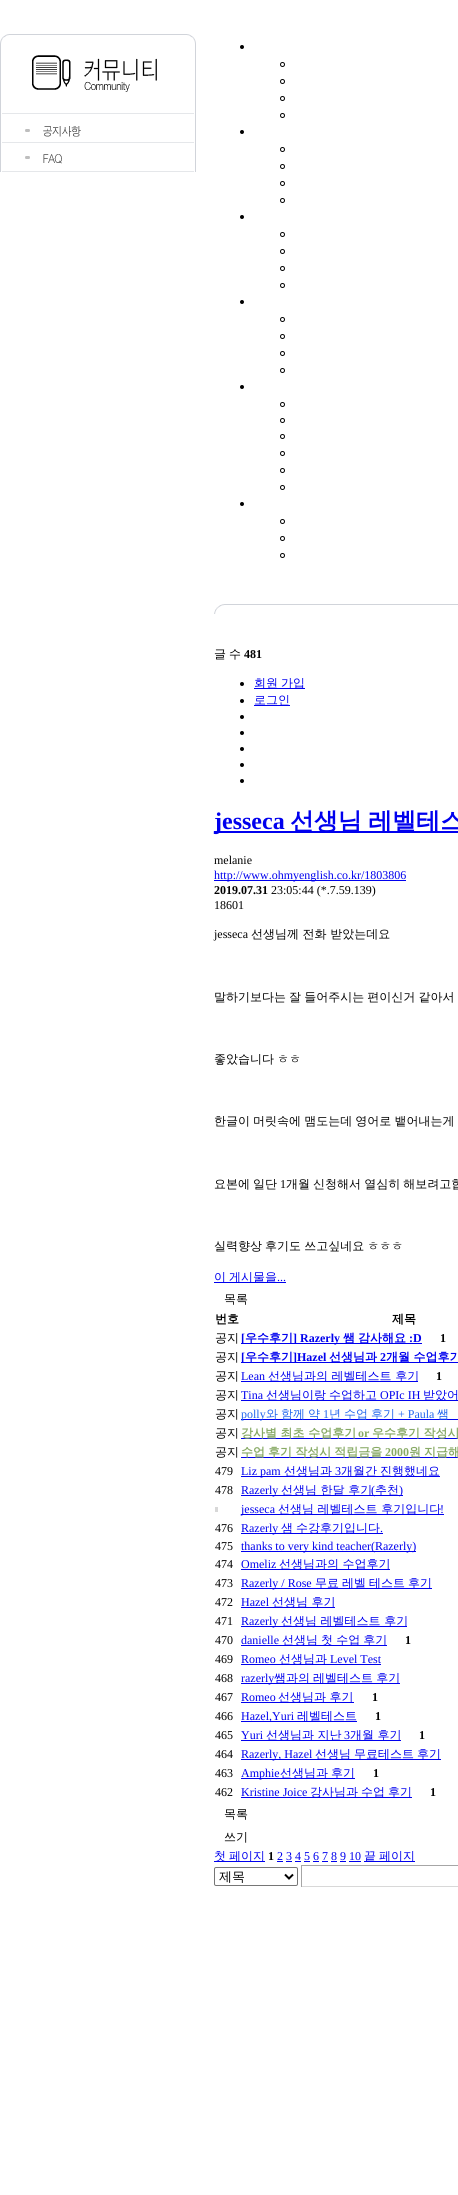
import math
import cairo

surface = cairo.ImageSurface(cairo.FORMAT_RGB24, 458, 2195)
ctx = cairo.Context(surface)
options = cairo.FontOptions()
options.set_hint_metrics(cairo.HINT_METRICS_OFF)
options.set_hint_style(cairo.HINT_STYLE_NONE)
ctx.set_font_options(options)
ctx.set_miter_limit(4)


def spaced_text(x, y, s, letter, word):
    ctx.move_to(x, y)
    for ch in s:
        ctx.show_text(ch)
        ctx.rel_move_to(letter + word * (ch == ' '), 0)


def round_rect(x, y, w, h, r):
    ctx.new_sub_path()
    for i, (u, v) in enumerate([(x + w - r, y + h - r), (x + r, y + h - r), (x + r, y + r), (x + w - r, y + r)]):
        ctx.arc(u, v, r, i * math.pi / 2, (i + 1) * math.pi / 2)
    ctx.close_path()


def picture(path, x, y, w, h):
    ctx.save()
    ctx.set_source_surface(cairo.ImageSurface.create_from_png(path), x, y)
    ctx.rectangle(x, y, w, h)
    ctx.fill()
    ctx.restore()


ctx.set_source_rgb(1, 1, 1)
ctx.paint()
picture("img1.png", 0, 34, 196, 80)
picture("img2.png", 0, 114, 196, 29)
picture("img3.png", 0, 143, 196, 29)
ctx.set_source_rgb(0, 0, 0)
ctx.arc(242, 47, 2, 0, 2 * math.pi)
ctx.fill()
ctx.arc(282.5, 64.5, 2, 0, 2 * math.pi)
ctx.set_line_width(1)
ctx.stroke()
ctx.arc(282.5, 81.5, 2, 0, 2 * math.pi)
ctx.stroke()
ctx.arc(282.5, 98.5, 2, 0, 2 * math.pi)
ctx.stroke()
ctx.arc(282.5, 115.5, 2, 0, 2 * math.pi)
ctx.stroke()
ctx.arc(242, 132, 2, 0, 2 * math.pi)
ctx.fill()
ctx.arc(282.5, 149.5, 2, 0, 2 * math.pi)
ctx.stroke()
ctx.arc(282.5, 166.5, 2, 0, 2 * math.pi)
ctx.stroke()
ctx.arc(282.5, 183.5, 2, 0, 2 * math.pi)
ctx.stroke()
ctx.arc(282.5, 200.5, 2, 0, 2 * math.pi)
ctx.stroke()
ctx.arc(242, 217, 2, 0, 2 * math.pi)
ctx.fill()
ctx.arc(282.5, 234.5, 2, 0, 2 * math.pi)
ctx.stroke()
ctx.arc(282.5, 251.5, 2, 0, 2 * math.pi)
ctx.stroke()
ctx.arc(282.5, 268.5, 2, 0, 2 * math.pi)
ctx.stroke()
ctx.arc(282.5, 285.5, 2, 0, 2 * math.pi)
ctx.stroke()
ctx.arc(242, 302, 2, 0, 2 * math.pi)
ctx.fill()
ctx.arc(282.5, 319.5, 2, 0, 2 * math.pi)
ctx.stroke()
ctx.arc(282.5, 336.5, 2, 0, 2 * math.pi)
ctx.stroke()
ctx.arc(282.5, 353.5, 2, 0, 2 * math.pi)
ctx.stroke()
ctx.arc(282.5, 370.5, 2, 0, 2 * math.pi)
ctx.stroke()
ctx.arc(242, 387, 2, 0, 2 * math.pi)
ctx.fill()
ctx.arc(282.5, 404.5, 2, 0, 2 * math.pi)
ctx.stroke()
ctx.arc(282.5, 420.5, 2, 0, 2 * math.pi)
ctx.stroke()
ctx.arc(282.5, 436.5, 2, 0, 2 * math.pi)
ctx.stroke()
ctx.arc(282.5, 453.5, 2, 0, 2 * math.pi)
ctx.stroke()
ctx.arc(282.5, 470.5, 2, 0, 2 * math.pi)
ctx.stroke()
ctx.arc(282.5, 487.5, 2, 0, 2 * math.pi)
ctx.stroke()
ctx.arc(242, 504, 2, 0, 2 * math.pi)
ctx.fill()
ctx.arc(282.5, 521.5, 2, 0, 2 * math.pi)
ctx.stroke()
ctx.arc(282.5, 538.5, 2, 0, 2 * math.pi)
ctx.stroke()
ctx.arc(282.5, 555.5, 2, 0, 2 * math.pi)
ctx.stroke()
picture("img4.png", 214, 604, 244, 10)
ctx.select_font_face("WenQuanYi Zen Hei Medium")
ctx.set_font_size(12)
spaced_text(214, 658, "글 수", 0, -0.5)
ctx.select_font_face("Liberation Serif", cairo.FONT_SLANT_NORMAL, cairo.FONT_WEIGHT_BOLD)
ctx.move_to(244, 658)
ctx.show_text("481")
ctx.new_path()
ctx.arc(242, 684, 2, 0, 2 * math.pi)
ctx.fill()
ctx.set_source_rgb(0, 0, 0.933)
ctx.rectangle(254, 688, 51, 1)
ctx.fill()
ctx.select_font_face("WenQuanYi Zen Hei Medium")
spaced_text(254, 687, "회원 가입", 0, -0.5)
ctx.set_source_rgb(0, 0, 0)
ctx.new_path()
ctx.arc(242, 701, 2, 0, 2 * math.pi)
ctx.fill()
ctx.set_source_rgb(0, 0, 0.933)
ctx.rectangle(254, 705, 36, 1)
ctx.fill()
ctx.move_to(254, 704)
ctx.show_text("로그인")
ctx.set_source_rgb(0, 0, 0)
ctx.new_path()
ctx.arc(242, 717, 2, 0, 2 * math.pi)
ctx.fill()
ctx.arc(242, 733, 2, 0, 2 * math.pi)
ctx.fill()
ctx.arc(242, 749, 2, 0, 2 * math.pi)
ctx.fill()
ctx.arc(242, 765, 2, 0, 2 * math.pi)
ctx.fill()
ctx.arc(242, 781, 2, 0, 2 * math.pi)
ctx.fill()
ctx.set_source_rgb(0, 0, 0.933)
ctx.rectangle(214, 831, 244, 2)
ctx.fill()
ctx.select_font_face("Liberation Serif", cairo.FONT_SLANT_NORMAL, cairo.FONT_WEIGHT_BOLD)
ctx.set_font_size(24)
ctx.move_to(214, 829)
ctx.show_text("jesseca")
ctx.select_font_face("WenQuanYi Zen Hei", cairo.FONT_SLANT_NORMAL, cairo.FONT_WEIGHT_BOLD)
spaced_text(290, 829, "선생님 레벨테스", 0, -1)
ctx.select_font_face("Liberation Serif")
ctx.set_font_size(12)
ctx.set_source_rgb(0, 0, 0)
ctx.move_to(214, 864)
ctx.show_text("melanie")
ctx.set_source_rgb(0, 0, 0.933)
ctx.rectangle(214, 880, 192, 1)
ctx.fill()
ctx.move_to(214, 879)
ctx.show_text("http://www.ohmyenglish.co.kr/1803806")
ctx.select_font_face("Liberation Serif", cairo.FONT_SLANT_NORMAL, cairo.FONT_WEIGHT_BOLD)
ctx.set_source_rgb(0, 0, 0)
ctx.move_to(214, 894)
ctx.show_text("2019.07.31")
ctx.select_font_face("Liberation Serif")
ctx.move_to(271, 894)
ctx.show_text("23:05:44 (*.7.59.139)")
ctx.move_to(214, 909)
ctx.show_text("18601")
ctx.move_to(214, 938)
ctx.show_text("jesseca")
ctx.select_font_face("WenQuanYi Zen Hei Medium")
ctx.move_to(251, 938)
ctx.show_text("선생님께 전화 받았는데요")
spaced_text(214, 1001, "말하기보다는 잘 들어주시는 편이신거 같아서", 0, -0.5)
spaced_text(214, 1063, "좋았습니다 ㅎㅎ", 0, -0.5)
spaced_text(214, 1125, "한글이 머릿속에 맴도는데 영어로 뱉어내는게", 0, -0.5)
spaced_text(214, 1188, "요본에 일단", 0, -0.5)
ctx.select_font_face("Liberation Serif")
ctx.move_to(280, 1188)
ctx.show_text("1")
ctx.select_font_face("WenQuanYi Zen Hei Medium")
spaced_text(286, 1188, "개월 신청해서 열심히 해보려고합", 0, -0.5)
spaced_text(214, 1250, "실력향상 후기도 쓰고싶네요 ㅎㅎㅎ", 0, -0.5)
ctx.set_source_rgb(0, 0, 0.933)
ctx.rectangle(214, 1282, 72, 1)
ctx.fill()
spaced_text(214, 1281, "이 게시물을", 0, -0.5)
ctx.select_font_face("Liberation Serif")
ctx.move_to(277, 1281)
ctx.show_text("...")
ctx.select_font_face("WenQuanYi Zen Hei Medium")
ctx.set_source_rgb(0, 0, 0)
ctx.move_to(224, 1303)
ctx.show_text("목록")
ctx.select_font_face("WenQuanYi Zen Hei", cairo.FONT_SLANT_NORMAL, cairo.FONT_WEIGHT_BOLD)
ctx.move_to(215, 1323)
ctx.show_text("번호")
ctx.move_to(392, 1323)
ctx.show_text("제목")
ctx.select_font_face("WenQuanYi Zen Hei Medium")
ctx.move_to(215, 1342)
ctx.show_text("공지")
ctx.set_source_rgb(0, 0, 0.933)
ctx.rectangle(241, 1343, 181, 1)
ctx.fill()
ctx.select_font_face("Liberation Serif", cairo.FONT_SLANT_NORMAL, cairo.FONT_WEIGHT_BOLD)
ctx.move_to(241, 1342)
ctx.show_text("[")
ctx.select_font_face("WenQuanYi Zen Hei", cairo.FONT_SLANT_NORMAL, cairo.FONT_WEIGHT_BOLD)
ctx.move_to(245, 1342)
ctx.show_text("우수후기")
ctx.select_font_face("Liberation Serif", cairo.FONT_SLANT_NORMAL, cairo.FONT_WEIGHT_BOLD)
ctx.move_to(293, 1342)
ctx.show_text("] Razerly")
ctx.select_font_face("WenQuanYi Zen Hei", cairo.FONT_SLANT_NORMAL, cairo.FONT_WEIGHT_BOLD)
ctx.move_to(343, 1342)
ctx.show_text("쌤")
ctx.move_to(358, 1342)
ctx.show_text("감사해요")
ctx.select_font_face("Liberation Serif", cairo.FONT_SLANT_NORMAL, cairo.FONT_WEIGHT_BOLD)
ctx.move_to(409, 1342)
ctx.show_text(":D")
ctx.set_source_rgb(0, 0, 0)
ctx.move_to(440, 1342)
ctx.show_text("1")
ctx.select_font_face("WenQuanYi Zen Hei Medium")
ctx.move_to(215, 1361)
ctx.show_text("공지")
ctx.set_source_rgb(0, 0, 0.933)
ctx.rectangle(241, 1362, 217, 1)
ctx.fill()
ctx.select_font_face("Liberation Serif", cairo.FONT_SLANT_NORMAL, cairo.FONT_WEIGHT_BOLD)
ctx.move_to(241, 1361)
ctx.show_text("[")
ctx.select_font_face("WenQuanYi Zen Hei", cairo.FONT_SLANT_NORMAL, cairo.FONT_WEIGHT_BOLD)
ctx.move_to(245, 1361)
ctx.show_text("우수후기")
ctx.select_font_face("Liberation Serif", cairo.FONT_SLANT_NORMAL, cairo.FONT_WEIGHT_BOLD)
ctx.move_to(293, 1361)
ctx.show_text("]Hazel")
ctx.select_font_face("WenQuanYi Zen Hei", cairo.FONT_SLANT_NORMAL, cairo.FONT_WEIGHT_BOLD)
ctx.move_to(329, 1361)
ctx.show_text("선생님과")
ctx.select_font_face("Liberation Serif", cairo.FONT_SLANT_NORMAL, cairo.FONT_WEIGHT_BOLD)
ctx.move_to(380, 1361)
ctx.show_text("2")
ctx.select_font_face("WenQuanYi Zen Hei", cairo.FONT_SLANT_NORMAL, cairo.FONT_WEIGHT_BOLD)
ctx.move_to(386, 1361)
ctx.show_text("개월 수업후기")
ctx.select_font_face("WenQuanYi Zen Hei Medium")
ctx.set_source_rgb(0, 0, 0)
ctx.move_to(215, 1380)
ctx.show_text("공지")
ctx.select_font_face("Liberation Serif")
ctx.set_source_rgb(0, 0, 0.933)
ctx.move_to(241, 1380)
ctx.show_text("Lean")
ctx.rectangle(241, 1381, 177, 1)
ctx.fill()
ctx.select_font_face("WenQuanYi Zen Hei Medium")
ctx.move_to(268, 1380)
ctx.show_text("선생님과의 레벨테스트 후기")
ctx.select_font_face("Liberation Serif", cairo.FONT_SLANT_NORMAL, cairo.FONT_WEIGHT_BOLD)
ctx.set_source_rgb(0, 0, 0)
ctx.move_to(436, 1380)
ctx.show_text("1")
ctx.select_font_face("WenQuanYi Zen Hei Medium")
ctx.move_to(215, 1399)
ctx.show_text("공지")
ctx.select_font_face("Liberation Serif")
ctx.set_source_rgb(0, 0, 0.933)
ctx.move_to(241, 1399)
ctx.show_text("Tina")
ctx.rectangle(241, 1400, 217, 1)
ctx.fill()
ctx.select_font_face("WenQuanYi Zen Hei Medium")
ctx.move_to(266, 1399)
ctx.show_text("선생님이랑")
ctx.move_to(329, 1399)
ctx.show_text("수업하고")
ctx.select_font_face("Liberation Serif")
ctx.move_to(380, 1399)
ctx.show_text("OPIc IH")
ctx.select_font_face("WenQuanYi Zen Hei Medium")
ctx.move_to(423, 1399)
ctx.show_text("받았어")
ctx.set_source_rgb(0, 0, 0)
ctx.move_to(215, 1418)
ctx.show_text("공지")
ctx.set_source_rgb(0, 0, 0.933)
ctx.rectangle(241, 1419, 217, 1)
ctx.fill()
ctx.select_font_face("Liberation Serif")
ctx.set_source_rgb(0.133, 0.4, 0.933)
ctx.move_to(241, 1418)
ctx.show_text("polly")
ctx.select_font_face("WenQuanYi Zen Hei Medium")
ctx.move_to(266, 1418)
ctx.show_text("와")
ctx.move_to(281, 1418)
ctx.show_text("함께")
ctx.move_to(308, 1418)
ctx.show_text("약")
ctx.select_font_face("Liberation Serif")
ctx.move_to(323, 1418)
ctx.show_text("1")
ctx.select_font_face("WenQuanYi Zen Hei Medium")
ctx.move_to(329, 1418)
ctx.show_text("년")
ctx.move_to(344, 1418)
ctx.show_text("수업")
ctx.move_to(371, 1418)
ctx.show_text("후기")
ctx.select_font_face("Liberation Serif")
ctx.move_to(398, 1418)
ctx.show_text("+ Paula")
ctx.select_font_face("WenQuanYi Zen Hei Medium")
ctx.move_to(437, 1418)
ctx.show_text("쌤")
ctx.set_source_rgb(0, 0, 0)
ctx.move_to(215, 1437)
ctx.show_text("공지")
ctx.set_source_rgb(0, 0, 0.933)
ctx.rectangle(241, 1438, 217, 1)
ctx.fill()
ctx.select_font_face("WenQuanYi Zen Hei", cairo.FONT_SLANT_NORMAL, cairo.FONT_WEIGHT_BOLD)
ctx.set_source_rgb(0.533, 0.667, 0.4)
ctx.move_to(241, 1437)
ctx.show_text("강사별 최초 수업후기")
ctx.select_font_face("Liberation Serif", cairo.FONT_SLANT_NORMAL, cairo.FONT_WEIGHT_BOLD)
ctx.move_to(358, 1437)
ctx.show_text("or")
ctx.select_font_face("WenQuanYi Zen Hei", cairo.FONT_SLANT_NORMAL, cairo.FONT_WEIGHT_BOLD)
ctx.move_to(372, 1437)
ctx.show_text("우수후기 작성시")
ctx.select_font_face("WenQuanYi Zen Hei Medium")
ctx.set_source_rgb(0, 0, 0)
ctx.move_to(215, 1456)
ctx.show_text("공지")
ctx.set_source_rgb(0, 0, 0.933)
ctx.rectangle(241, 1457, 217, 1)
ctx.fill()
ctx.select_font_face("WenQuanYi Zen Hei", cairo.FONT_SLANT_NORMAL, cairo.FONT_WEIGHT_BOLD)
ctx.set_source_rgb(0.533, 0.667, 0.4)
spaced_text(241, 1456, "수업 후기 작성시 적립금을", 0, -0.5)
ctx.select_font_face("Liberation Serif", cairo.FONT_SLANT_NORMAL, cairo.FONT_WEIGHT_BOLD)
ctx.move_to(385, 1456)
ctx.show_text("2000")
ctx.select_font_face("WenQuanYi Zen Hei", cairo.FONT_SLANT_NORMAL, cairo.FONT_WEIGHT_BOLD)
spaced_text(409, 1456, "원 지급해", 0, -0.5)
ctx.select_font_face("Liberation Serif")
ctx.set_source_rgb(0, 0, 0)
ctx.move_to(215, 1475)
ctx.show_text("479")
ctx.set_source_rgb(0, 0, 0.933)
ctx.rectangle(241, 1476, 199, 1)
ctx.fill()
ctx.move_to(241, 1475)
ctx.show_text("Liz pam")
ctx.select_font_face("WenQuanYi Zen Hei Medium")
ctx.move_to(284, 1475)
ctx.show_text("선생님과")
ctx.select_font_face("Liberation Serif")
ctx.move_to(335, 1475)
ctx.show_text("3")
ctx.select_font_face("WenQuanYi Zen Hei Medium")
ctx.move_to(341, 1475)
ctx.show_text("개월간")
ctx.move_to(380, 1475)
ctx.show_text("진행했네요")
ctx.select_font_face("Liberation Serif")
ctx.set_source_rgb(0, 0, 0)
ctx.move_to(215, 1494)
ctx.show_text("478")
ctx.set_source_rgb(0, 0, 0.933)
ctx.rectangle(241, 1495, 162, 1)
ctx.fill()
ctx.move_to(241, 1494)
ctx.show_text("Razerly")
ctx.select_font_face("WenQuanYi Zen Hei Medium")
ctx.move_to(281, 1494)
ctx.show_text("선생님 한달 후기")
ctx.select_font_face("Liberation Serif")
ctx.move_to(371, 1494)
ctx.show_text("(")
ctx.select_font_face("WenQuanYi Zen Hei Medium")
ctx.move_to(375, 1494)
ctx.show_text("추천")
ctx.select_font_face("Liberation Serif")
ctx.move_to(399, 1494)
ctx.show_text(")")
ctx.set_source_rgb(0.847, 0.847, 0.847)
ctx.rectangle(215, 1507, 3, 5)
ctx.fill()
ctx.set_source_rgb(0, 0, 0.933)
ctx.rectangle(241, 1514, 203, 1)
ctx.fill()
ctx.move_to(241, 1513)
ctx.show_text("jesseca")
ctx.select_font_face("WenQuanYi Zen Hei Medium")
ctx.move_to(278, 1513)
ctx.show_text("선생님 레벨테스트 후기입니다")
ctx.select_font_face("Liberation Serif")
ctx.move_to(440, 1513)
ctx.show_text("!")
ctx.set_source_rgb(0, 0, 0)
ctx.move_to(215, 1532)
ctx.show_text("476")
ctx.set_source_rgb(0, 0, 0.933)
ctx.rectangle(241, 1533, 142, 1)
ctx.fill()
ctx.move_to(241, 1532)
ctx.show_text("Razerly")
ctx.select_font_face("WenQuanYi Zen Hei Medium")
ctx.move_to(281, 1532)
ctx.show_text("샘")
ctx.move_to(296, 1532)
ctx.show_text("수강후기입니다")
ctx.select_font_face("Liberation Serif")
ctx.move_to(380, 1532)
ctx.show_text(".")
ctx.set_source_rgb(0, 0, 0)
ctx.move_to(215, 1550)
ctx.show_text("475")
ctx.set_source_rgb(0, 0, 0.933)
ctx.rectangle(241, 1551, 175, 1)
ctx.fill()
ctx.move_to(241, 1550)
ctx.show_text("thanks to very kind teacher(Razerly)")
ctx.set_source_rgb(0, 0, 0)
ctx.move_to(215, 1568)
ctx.show_text("474")
ctx.set_source_rgb(0, 0, 0.933)
ctx.move_to(241, 1568)
ctx.show_text("Omeliz")
ctx.rectangle(241, 1569, 149, 1)
ctx.fill()
ctx.select_font_face("WenQuanYi Zen Hei Medium")
ctx.move_to(279, 1568)
ctx.show_text("선생님과의 수업후기")
ctx.select_font_face("Liberation Serif")
ctx.set_source_rgb(0, 0, 0)
ctx.move_to(215, 1587)
ctx.show_text("473")
ctx.set_source_rgb(0, 0, 0.933)
ctx.rectangle(241, 1588, 191, 1)
ctx.fill()
ctx.move_to(241, 1587)
ctx.show_text("Razerly / Rose")
ctx.select_font_face("WenQuanYi Zen Hei Medium")
ctx.move_to(315, 1587)
ctx.show_text("무료")
ctx.move_to(342, 1587)
ctx.show_text("레벨")
ctx.move_to(369, 1587)
ctx.show_text("테스트")
ctx.move_to(408, 1587)
ctx.show_text("후기")
ctx.select_font_face("Liberation Serif")
ctx.set_source_rgb(0, 0, 0)
ctx.move_to(215, 1606)
ctx.show_text("472")
ctx.set_source_rgb(0, 0, 0.933)
ctx.move_to(241, 1606)
ctx.show_text("Hazel")
ctx.rectangle(241, 1607, 94, 1)
ctx.fill()
ctx.select_font_face("WenQuanYi Zen Hei Medium")
ctx.move_to(272, 1606)
ctx.show_text("선생님 후기")
ctx.select_font_face("Liberation Serif")
ctx.set_source_rgb(0, 0, 0)
ctx.move_to(215, 1625)
ctx.show_text("471")
ctx.set_source_rgb(0, 0, 0.933)
ctx.rectangle(241, 1626, 166, 1)
ctx.fill()
ctx.move_to(241, 1625)
ctx.show_text("Razerly")
ctx.select_font_face("WenQuanYi Zen Hei Medium")
ctx.move_to(281, 1625)
ctx.show_text("선생님 레벨테스트 후기")
ctx.select_font_face("Liberation Serif")
ctx.set_source_rgb(0, 0, 0)
ctx.move_to(215, 1644)
ctx.show_text("470")
ctx.set_source_rgb(0, 0, 0.933)
ctx.move_to(241, 1644)
ctx.show_text("danielle")
ctx.rectangle(241, 1645, 146, 1)
ctx.fill()
ctx.select_font_face("WenQuanYi Zen Hei Medium")
spaced_text(282, 1644, "선생님 첫 수업 후기", 0, -0.5)
ctx.select_font_face("Liberation Serif", cairo.FONT_SLANT_NORMAL, cairo.FONT_WEIGHT_BOLD)
ctx.set_source_rgb(0, 0, 0)
ctx.move_to(405, 1644)
ctx.show_text("1")
ctx.select_font_face("Liberation Serif")
ctx.move_to(215, 1663)
ctx.show_text("469")
ctx.set_source_rgb(0, 0, 0.933)
ctx.move_to(241, 1663)
ctx.show_text("Romeo")
ctx.rectangle(241, 1664, 140, 1)
ctx.fill()
ctx.select_font_face("WenQuanYi Zen Hei Medium")
ctx.move_to(279, 1663)
ctx.show_text("선생님과")
ctx.select_font_face("Liberation Serif")
ctx.move_to(330, 1663)
ctx.show_text("Level Test")
ctx.set_source_rgb(0, 0, 0)
ctx.move_to(215, 1682)
ctx.show_text("468")
ctx.set_source_rgb(0, 0, 0.933)
ctx.rectangle(241, 1683, 159, 1)
ctx.fill()
ctx.move_to(241, 1682)
ctx.show_text("razerly")
ctx.select_font_face("WenQuanYi Zen Hei Medium")
spaced_text(274, 1682, "쌤과의 레벨테스트 후기", 0, -0.5)
ctx.select_font_face("Liberation Serif")
ctx.set_source_rgb(0, 0, 0)
ctx.move_to(215, 1701)
ctx.show_text("467")
ctx.set_source_rgb(0, 0, 0.933)
ctx.move_to(241, 1701)
ctx.show_text("Romeo")
ctx.rectangle(241, 1702, 113, 1)
ctx.fill()
ctx.select_font_face("WenQuanYi Zen Hei Medium")
ctx.move_to(278, 1701)
ctx.show_text("선생님과 후기")
ctx.select_font_face("Liberation Serif", cairo.FONT_SLANT_NORMAL, cairo.FONT_WEIGHT_BOLD)
ctx.set_source_rgb(0, 0, 0)
ctx.move_to(372, 1701)
ctx.show_text("1")
ctx.select_font_face("Liberation Serif")
ctx.move_to(215, 1720)
ctx.show_text("466")
ctx.set_source_rgb(0, 0, 0.933)
ctx.rectangle(241, 1721, 116, 1)
ctx.fill()
ctx.move_to(241, 1720)
ctx.show_text("Hazel,Yuri")
ctx.select_font_face("WenQuanYi Zen Hei Medium")
ctx.move_to(297, 1720)
ctx.show_text("레벨테스트")
ctx.select_font_face("Liberation Serif", cairo.FONT_SLANT_NORMAL, cairo.FONT_WEIGHT_BOLD)
ctx.set_source_rgb(0, 0, 0)
ctx.move_to(375, 1720)
ctx.show_text("1")
ctx.select_font_face("Liberation Serif")
ctx.move_to(215, 1739)
ctx.show_text("465")
ctx.set_source_rgb(0, 0, 0.933)
ctx.move_to(241, 1739)
ctx.show_text("Yuri")
ctx.rectangle(241, 1740, 160, 1)
ctx.fill()
ctx.select_font_face("WenQuanYi Zen Hei Medium")
ctx.move_to(266, 1739)
ctx.show_text("선생님과 지난")
ctx.select_font_face("Liberation Serif")
ctx.move_to(344, 1739)
ctx.show_text("3")
ctx.select_font_face("WenQuanYi Zen Hei Medium")
ctx.move_to(350, 1739)
ctx.show_text("개월 후기")
ctx.select_font_face("Liberation Serif", cairo.FONT_SLANT_NORMAL, cairo.FONT_WEIGHT_BOLD)
ctx.set_source_rgb(0, 0, 0)
ctx.move_to(419, 1739)
ctx.show_text("1")
ctx.select_font_face("Liberation Serif")
ctx.move_to(215, 1758)
ctx.show_text("464")
ctx.set_source_rgb(0, 0, 0.933)
ctx.rectangle(241, 1759, 200, 1)
ctx.fill()
ctx.move_to(241, 1758)
ctx.show_text("Razerly, Hazel")
ctx.select_font_face("WenQuanYi Zen Hei Medium")
ctx.move_to(315, 1758)
ctx.show_text("선생님")
ctx.move_to(354, 1758)
ctx.show_text("무료테스트")
ctx.move_to(417, 1758)
ctx.show_text("후기")
ctx.select_font_face("Liberation Serif")
ctx.set_source_rgb(0, 0, 0)
ctx.move_to(215, 1777)
ctx.show_text("463")
ctx.set_source_rgb(0, 0, 0.933)
ctx.rectangle(241, 1778, 114, 1)
ctx.fill()
ctx.move_to(241, 1777)
ctx.show_text("Amphie")
ctx.select_font_face("WenQuanYi Zen Hei Medium")
spaced_text(280, 1777, "선생님과 후기", 0, -0.5)
ctx.select_font_face("Liberation Serif", cairo.FONT_SLANT_NORMAL, cairo.FONT_WEIGHT_BOLD)
ctx.set_source_rgb(0, 0, 0)
ctx.move_to(373, 1777)
ctx.show_text("1")
ctx.select_font_face("Liberation Serif")
ctx.move_to(215, 1796)
ctx.show_text("462")
ctx.set_source_rgb(0, 0, 0.933)
ctx.move_to(241, 1796)
ctx.show_text("Kristine Joice")
ctx.rectangle(241, 1797, 171, 1)
ctx.fill()
ctx.select_font_face("WenQuanYi Zen Hei Medium")
ctx.move_to(310, 1796)
ctx.show_text("강사님과")
ctx.move_to(361, 1796)
ctx.show_text("수업")
ctx.move_to(388, 1796)
ctx.show_text("후기")
ctx.select_font_face("Liberation Serif", cairo.FONT_SLANT_NORMAL, cairo.FONT_WEIGHT_BOLD)
ctx.set_source_rgb(0, 0, 0)
ctx.move_to(430, 1796)
ctx.show_text("1")
ctx.select_font_face("WenQuanYi Zen Hei Medium")
ctx.move_to(224, 1818)
ctx.show_text("목록")
ctx.move_to(224, 1841)
ctx.show_text("쓰기")
ctx.set_source_rgb(0, 0, 0.933)
ctx.rectangle(214, 1861, 51, 1)
ctx.fill()
spaced_text(214, 1860, "첫 페이지", 0, -0.5)
ctx.select_font_face("Liberation Serif", cairo.FONT_SLANT_NORMAL, cairo.FONT_WEIGHT_BOLD)
ctx.set_source_rgb(0, 0, 0)
ctx.move_to(268, 1860)
ctx.show_text("1")
ctx.select_font_face("Liberation Serif")
ctx.set_source_rgb(0, 0, 0.933)
ctx.move_to(277, 1860)
ctx.show_text("2 3 4 5 6 7 8 9 10")
ctx.rectangle(277, 1861, 6, 1)
ctx.fill()
ctx.rectangle(364, 1861, 51, 1)
ctx.fill()
ctx.select_font_face("WenQuanYi Zen Hei Medium")
spaced_text(364, 1860, "끝 페이지", 0, -0.5)
ctx.rectangle(286, 1861, 6, 1)
ctx.fill()
ctx.rectangle(295, 1861, 6, 1)
ctx.fill()
ctx.rectangle(304, 1861, 6, 1)
ctx.fill()
ctx.rectangle(313, 1861, 6, 1)
ctx.fill()
ctx.rectangle(322, 1861, 6, 1)
ctx.fill()
ctx.rectangle(331, 1861, 6, 1)
ctx.fill()
ctx.rectangle(340, 1861, 6, 1)
ctx.fill()
ctx.rectangle(349, 1861, 12, 1)
ctx.fill()
round_rect(214.5, 1867.5, 83, 18, 1.5)
ctx.set_source_rgb(0.463, 0.463, 0.463)
ctx.stroke()
ctx.new_path()
ctx.move_to(285, 1874.5)
ctx.line_to(289, 1878.5)
ctx.line_to(293, 1874.5)
ctx.set_source_rgb(0, 0, 0)
ctx.set_line_width(2)
ctx.stroke()
ctx.set_font_size(13)
ctx.move_to(219, 1881)
ctx.show_text("제목")
ctx.set_source_rgb(0.651, 0.651, 0.651)
ctx.rectangle(301, 1865, 157, 1)
ctx.fill()
ctx.set_source_rgb(0.847, 0.847, 0.847)
ctx.rectangle(301, 1886, 157, 1)
ctx.fill()
ctx.set_source_rgb(0.651, 0.651, 0.651)
ctx.rectangle(301, 1865, 1, 22)
ctx.fill()
surface.write_to_png("page.png")
